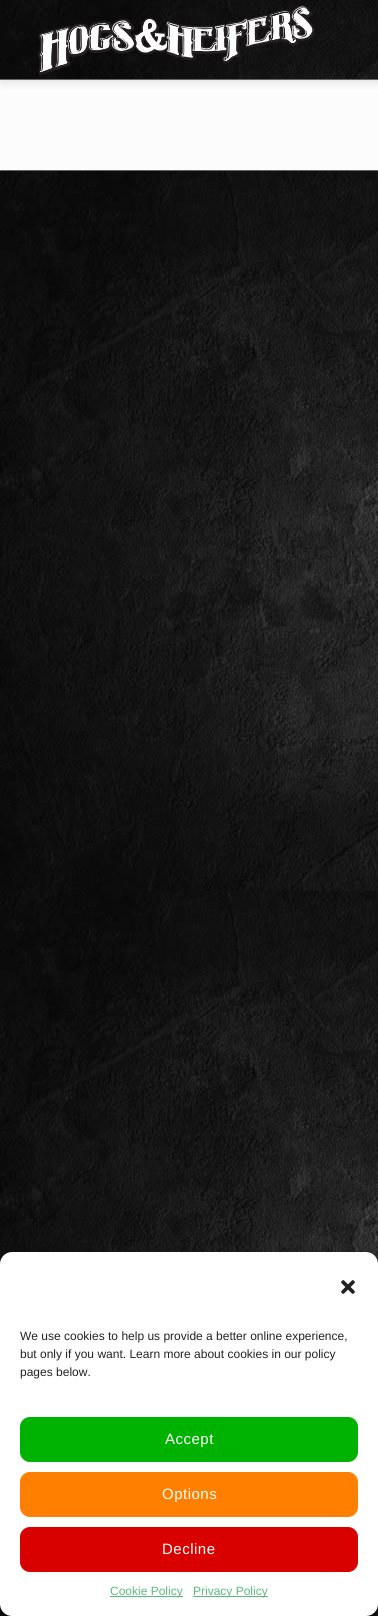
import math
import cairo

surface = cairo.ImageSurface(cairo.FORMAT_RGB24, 378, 1616)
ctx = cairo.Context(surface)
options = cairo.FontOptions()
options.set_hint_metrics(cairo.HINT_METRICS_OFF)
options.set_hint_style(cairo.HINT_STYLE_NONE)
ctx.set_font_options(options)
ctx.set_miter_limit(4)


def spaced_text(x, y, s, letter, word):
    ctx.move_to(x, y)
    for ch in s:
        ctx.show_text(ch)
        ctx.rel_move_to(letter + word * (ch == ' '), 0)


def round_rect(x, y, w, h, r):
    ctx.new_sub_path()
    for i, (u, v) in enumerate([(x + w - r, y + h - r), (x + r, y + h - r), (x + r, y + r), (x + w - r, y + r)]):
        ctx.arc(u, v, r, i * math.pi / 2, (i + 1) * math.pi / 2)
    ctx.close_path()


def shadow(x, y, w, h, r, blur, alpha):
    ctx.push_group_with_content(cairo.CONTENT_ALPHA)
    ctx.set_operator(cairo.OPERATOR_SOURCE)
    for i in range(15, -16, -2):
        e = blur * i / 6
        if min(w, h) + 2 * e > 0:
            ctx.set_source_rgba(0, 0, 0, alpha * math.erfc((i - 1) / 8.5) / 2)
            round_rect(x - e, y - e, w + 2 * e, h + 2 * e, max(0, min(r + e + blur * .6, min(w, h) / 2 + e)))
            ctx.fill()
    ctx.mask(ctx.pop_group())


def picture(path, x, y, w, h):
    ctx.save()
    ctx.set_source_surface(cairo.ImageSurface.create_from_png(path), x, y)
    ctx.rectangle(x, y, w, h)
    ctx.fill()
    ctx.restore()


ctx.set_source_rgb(0.988, 0.988, 0.988)
ctx.paint()
ctx.set_source_rgb(0, 0, 0)
shadow(1, 1, 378, 80, 0, 5, 0.15)
picture("img1.png", 0, 0, 378, 79)
ctx.set_source_rgb(0.392, 0.392, 0.392)
ctx.rectangle(0, 79, 378, 1)
ctx.fill()
picture("img2.png", 38, 5, 277, 70)
picture("img3.png", 0, 171, 378, 1445)
ctx.rectangle(0, 170, 378, 1)
ctx.fill()
ctx.set_source_rgb(0, 0, 0)
shadow(0, 1258, 378, 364, 12, 3, 0.23)
ctx.set_source_rgb(1, 1, 1)
round_rect(0, 1252, 378, 364, 12)
ctx.fill()
picture("img4.png", 341, 1280, 14, 14)
ctx.select_font_face("Liberation Sans")
ctx.set_font_size(12)
ctx.set_source_rgb(0.133, 0.133, 0.133)
ctx.move_to(20, 1340)
ctx.show_text("We use cookies to help us provide a better online experience,")
ctx.move_to(20, 1358)
ctx.show_text("but only if you want. Learn more about cookies in our policy")
ctx.move_to(20, 1376)
ctx.show_text("pages below.")
ctx.set_source_rgb(0, 0.698, 0)
round_rect(20.5, 1417.5, 337, 44, 9.5)
ctx.fill_preserve()
ctx.set_line_width(1)
ctx.stroke()
ctx.set_font_size(15)
ctx.set_source_rgb(1, 1, 0.988)
spaced_text(165, 1444, "Accept", 0.5, 0)
ctx.set_source_rgb(1, 0.502, 0)
round_rect(20.5, 1472.5, 337, 44, 9.5)
ctx.fill_preserve()
ctx.stroke()
ctx.set_source_rgb(1, 1, 0.988)
spaced_text(162, 1499, "Options", 0.5, 0)
ctx.set_source_rgb(0.851, 0, 0)
round_rect(20.5, 1527.5, 337, 44, 9.5)
ctx.fill_preserve()
ctx.stroke()
ctx.set_source_rgb(1, 1, 0.988)
spaced_text(162, 1554, "Decline", 0.5, 0)
ctx.set_source_rgb(0.357, 0.729, 0.49)
ctx.rectangle(110, 1596, 73, 1)
ctx.fill()
ctx.set_font_size(12)
ctx.move_to(110, 1595)
ctx.show_text("Cookie Policy")
ctx.rectangle(193, 1596, 75, 1)
ctx.fill()
ctx.move_to(193, 1595)
ctx.show_text("Privacy Policy")
surface.write_to_png("page.png")
